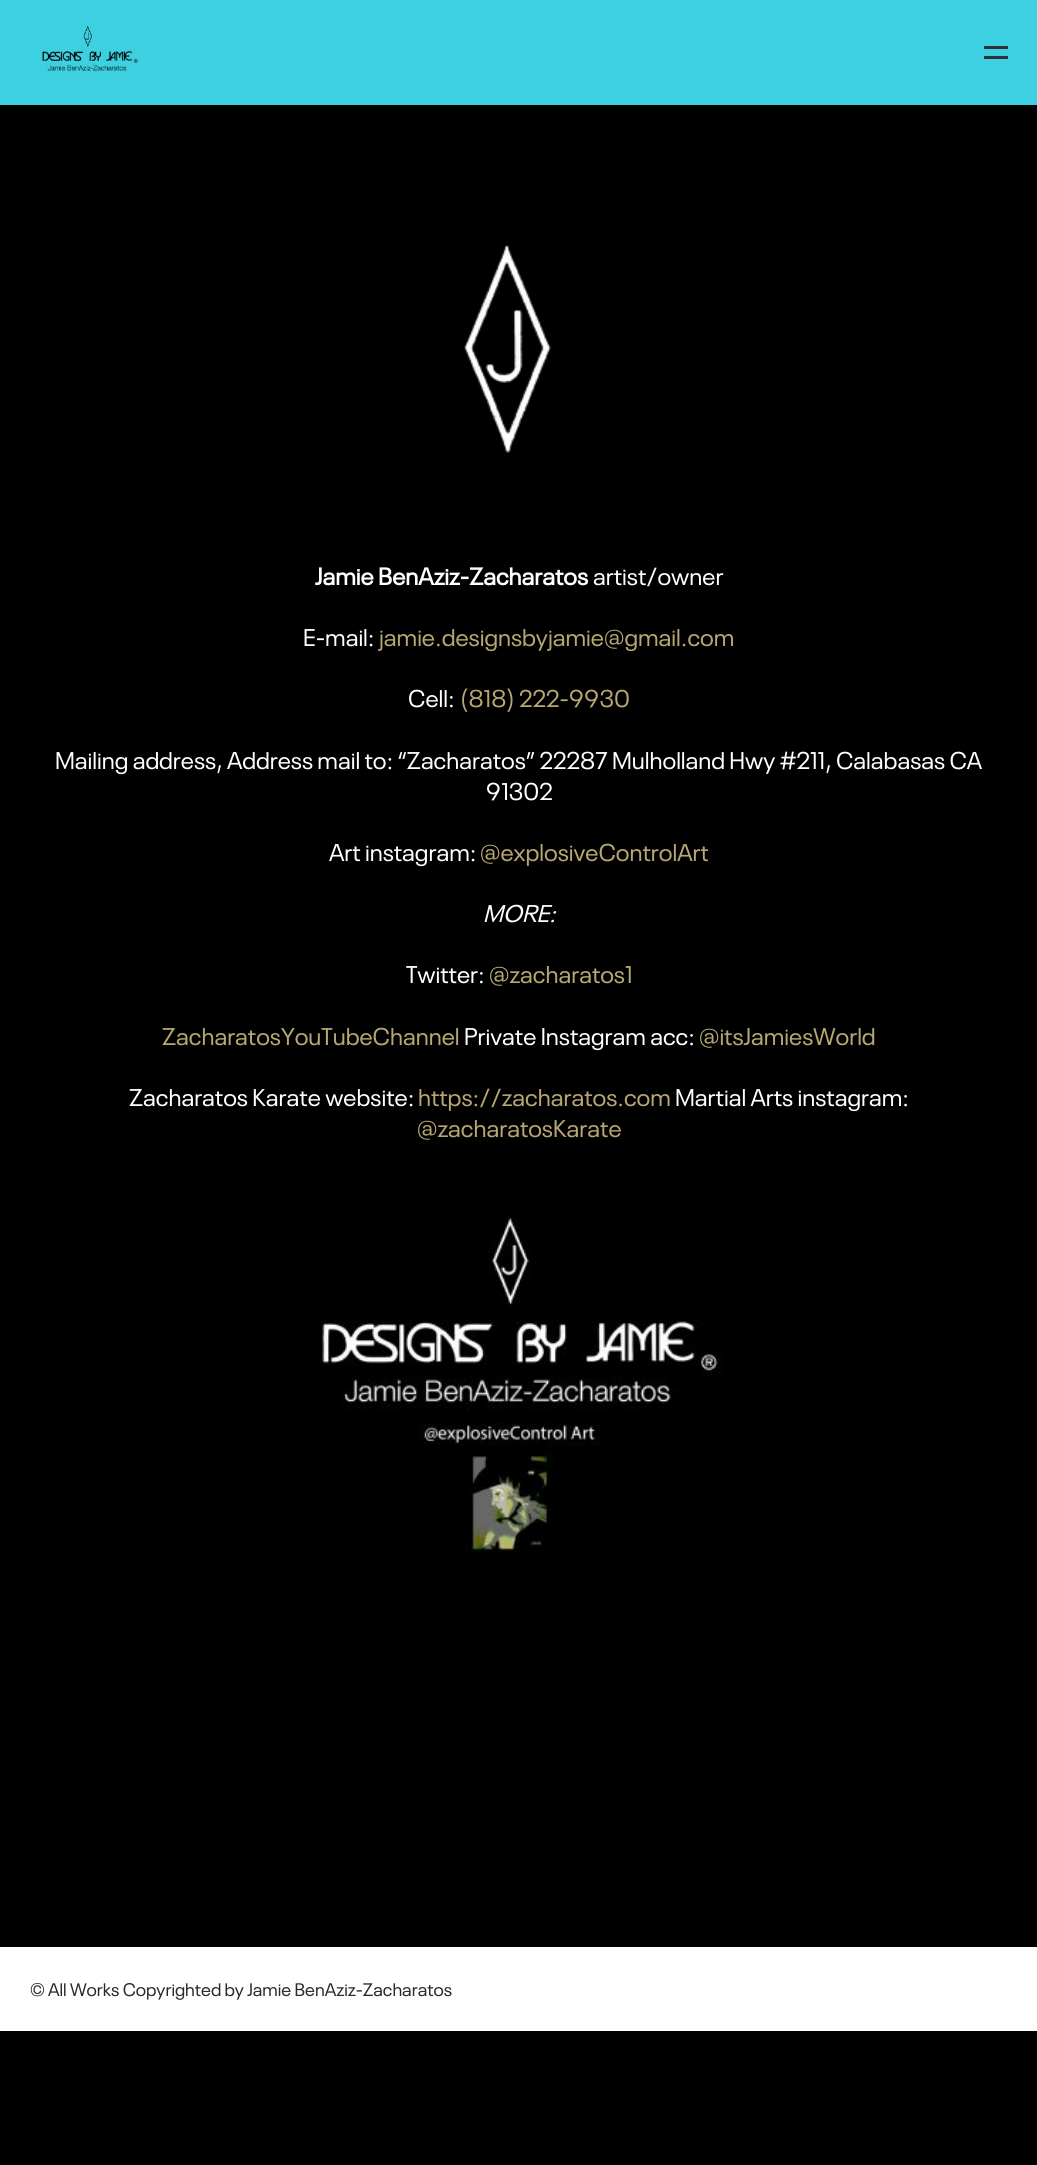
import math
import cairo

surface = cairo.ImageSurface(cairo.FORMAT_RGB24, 1037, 2165)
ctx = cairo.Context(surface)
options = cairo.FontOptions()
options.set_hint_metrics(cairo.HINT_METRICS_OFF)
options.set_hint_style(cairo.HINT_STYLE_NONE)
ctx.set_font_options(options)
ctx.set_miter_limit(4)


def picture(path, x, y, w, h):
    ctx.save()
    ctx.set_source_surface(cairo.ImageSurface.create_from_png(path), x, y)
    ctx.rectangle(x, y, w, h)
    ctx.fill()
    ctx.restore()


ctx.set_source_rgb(0, 0, 0)
ctx.paint()
ctx.set_source_rgb(0.235, 0.816, 0.878)
ctx.rectangle(0, 0, 1037, 105)
ctx.fill()
picture("img1.png", 42, 25, 96, 46)
ctx.set_source_rgb(0.192, 0.192, 0.224)
ctx.rectangle(984, 56, 24, 3)
ctx.fill()
ctx.rectangle(984, 46, 24, 3)
ctx.fill()
picture("img2.png", 464, 245, 87, 209)
ctx.select_font_face("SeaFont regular", cairo.FONT_SLANT_NORMAL, cairo.FONT_WEIGHT_BOLD)
ctx.set_font_size(24)
ctx.set_source_rgb(1, 1, 1)
ctx.move_to(315, 585)
ctx.show_text("Jamie BenAziz-Zacharatos")
ctx.select_font_face("SeaFont regular")
ctx.move_to(593, 585)
ctx.show_text("artist/owner")
ctx.move_to(303, 646)
ctx.show_text("E-mail:")
ctx.set_source_rgb(0.722, 0.655, 0.447)
ctx.move_to(379, 646)
ctx.show_text("jamie.designsbyjamie@gmail.com")
ctx.set_source_rgb(1, 1, 1)
ctx.move_to(408, 707)
ctx.show_text("Cell:")
ctx.set_source_rgb(0.722, 0.655, 0.447)
ctx.move_to(460, 707)
ctx.show_text("(818) 222-9930")
ctx.set_source_rgb(1, 1, 1)
ctx.move_to(55, 769)
ctx.show_text("Mailing address, Address mail to: “Zacharatos” 22287 Mulholland Hwy #211, Calabasas CA")
ctx.move_to(486, 800)
ctx.show_text("91302")
ctx.move_to(329, 861)
ctx.show_text("Art instagram:")
ctx.set_source_rgb(0.722, 0.655, 0.447)
ctx.move_to(480, 861)
ctx.show_text("@explosiveControlArt")
ctx.select_font_face("SeaFont regular", cairo.FONT_SLANT_ITALIC)
ctx.set_source_rgb(1, 1, 1)
ctx.move_to(483, 922)
ctx.show_text("MORE:")
ctx.select_font_face("SeaFont regular")
ctx.move_to(406, 983)
ctx.show_text("Twitter:")
ctx.set_source_rgb(0.722, 0.655, 0.447)
ctx.move_to(489, 983)
ctx.show_text("@zacharatos1")
ctx.move_to(162, 1045)
ctx.show_text("ZacharatosYouTubeChannel")
ctx.set_source_rgb(1, 1, 1)
ctx.move_to(464, 1045)
ctx.show_text("Private Instagram acc:")
ctx.set_source_rgb(0.722, 0.655, 0.447)
ctx.move_to(699, 1045)
ctx.show_text("@itsJamiesWorld")
ctx.set_source_rgb(1, 1, 1)
ctx.move_to(129, 1106)
ctx.show_text("Zacharatos Karate website:")
ctx.set_source_rgb(0.722, 0.655, 0.447)
ctx.move_to(418, 1106)
ctx.show_text("https://zacharatos.com")
ctx.set_source_rgb(1, 1, 1)
ctx.move_to(675, 1106)
ctx.show_text("Martial Arts instagram:")
ctx.set_source_rgb(0.722, 0.655, 0.447)
ctx.move_to(417, 1137)
ctx.show_text("@zacharatosKarate")
picture("img3.png", 321, 1218, 403, 341)
ctx.set_source_rgb(1, 1, 1)
ctx.rectangle(0, 1947, 1037, 84)
ctx.fill()
ctx.set_font_size(18)
ctx.set_source_rgb(0.157, 0.157, 0.18)
ctx.move_to(30, 1996)
ctx.show_text("© All Works Copyrighted by Jamie BenAziz-Zacharatos")
surface.write_to_png("page.png")
